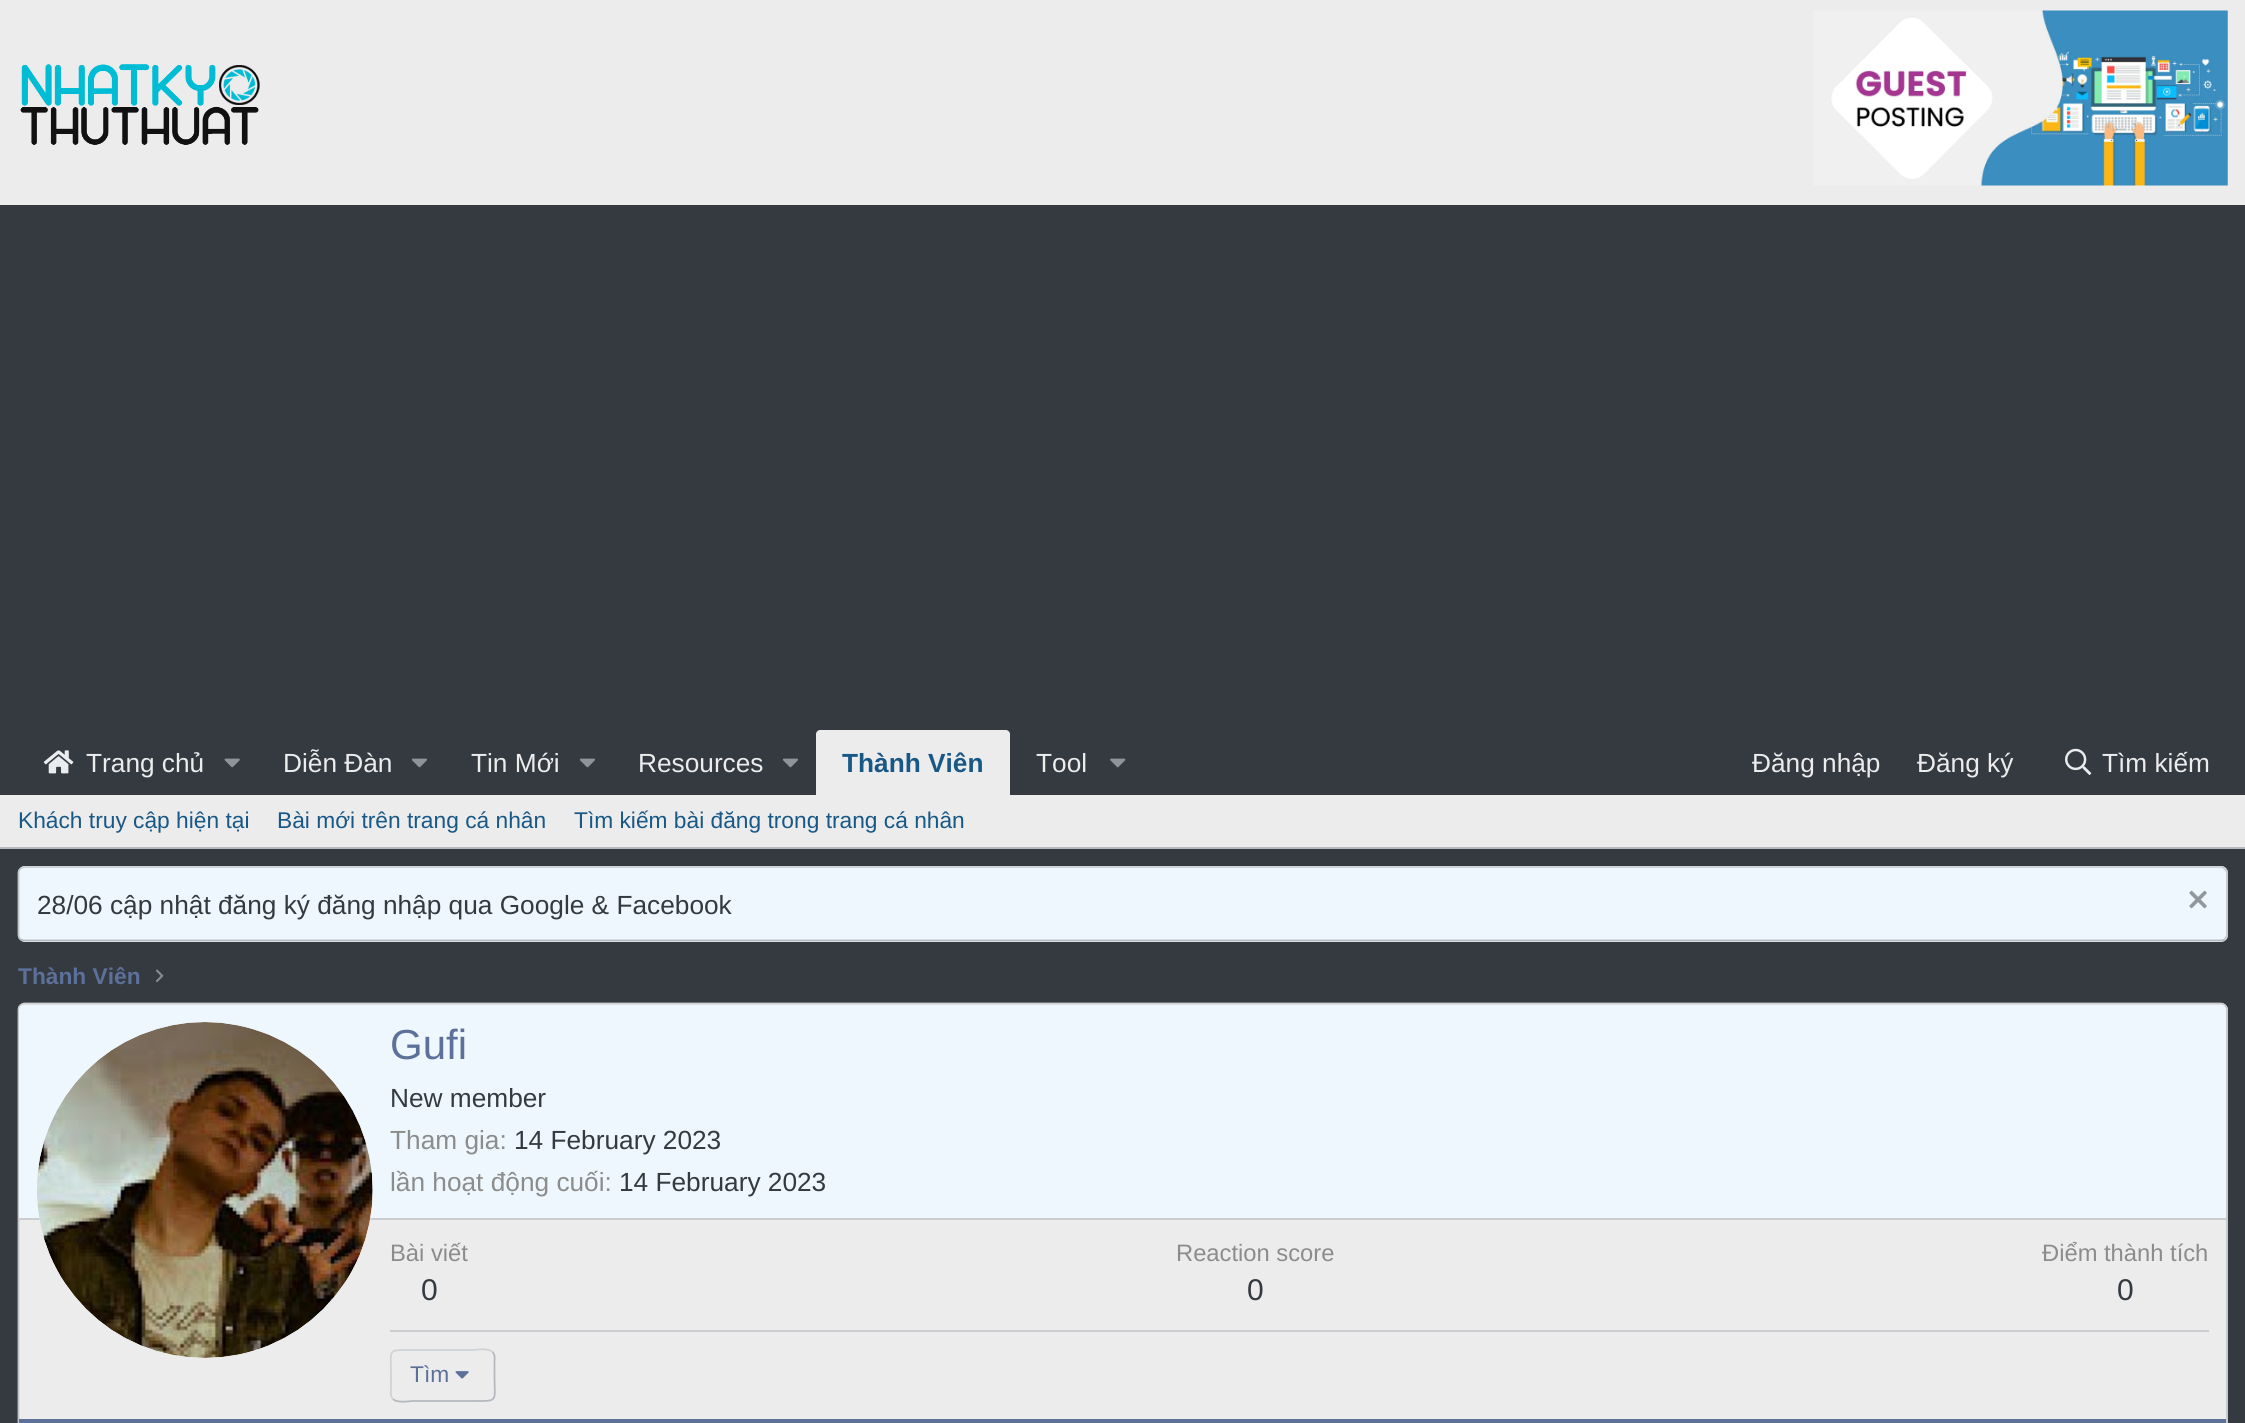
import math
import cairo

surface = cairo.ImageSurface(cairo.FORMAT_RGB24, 2245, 1423)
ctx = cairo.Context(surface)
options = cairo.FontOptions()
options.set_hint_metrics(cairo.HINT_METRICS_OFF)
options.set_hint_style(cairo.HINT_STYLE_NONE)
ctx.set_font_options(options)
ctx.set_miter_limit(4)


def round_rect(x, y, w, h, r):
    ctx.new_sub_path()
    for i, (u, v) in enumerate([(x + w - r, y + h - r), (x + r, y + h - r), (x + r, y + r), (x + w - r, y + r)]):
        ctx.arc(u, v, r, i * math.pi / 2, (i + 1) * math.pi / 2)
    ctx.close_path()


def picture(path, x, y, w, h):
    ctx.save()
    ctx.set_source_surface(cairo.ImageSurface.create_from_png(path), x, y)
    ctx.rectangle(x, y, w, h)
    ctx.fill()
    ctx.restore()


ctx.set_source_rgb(0.204, 0.227, 0.251)
ctx.paint()
ctx.set_source_rgb(0.922, 0.925, 0.929)
ctx.rectangle(0, 0, 2245, 205)
ctx.fill()
picture("img1.png", 20, 64, 240, 81)
picture("img2.png", 1813, 10, 415, 176)
picture("img3.png", 43, 750, 31, 24)
ctx.select_font_face("Liberation Sans")
ctx.set_font_size(26.25)
ctx.move_to(86, 772)
ctx.show_text("Trang chủ")
picture("img4.png", 224, 758, 16, 10)
ctx.move_to(283, 772)
ctx.show_text("Diễn Đàn")
picture("img5.png", 411, 758, 16, 10)
ctx.move_to(471, 772)
ctx.show_text("Tin Mới")
picture("img5.png", 579, 758, 16, 10)
ctx.move_to(638, 772)
ctx.show_text("Resources")
picture("img5.png", 782, 758, 16, 10)
ctx.new_path()
ctx.move_to(820, 730)
ctx.line_to(1006, 730)
ctx.curve_to(1008, 730, 1010, 732, 1010, 734)
ctx.line_to(1010, 795)
ctx.line_to(816, 795)
ctx.line_to(816, 734)
ctx.curve_to(816, 732, 818, 730, 820, 730)
ctx.close_path()
ctx.fill()
ctx.select_font_face("Liberation Sans", cairo.FONT_SLANT_NORMAL, cairo.FONT_WEIGHT_BOLD)
ctx.set_source_rgb(0.094, 0.345, 0.525)
ctx.move_to(842, 772)
ctx.show_text("Thành Viên")
ctx.select_font_face("Liberation Sans")
ctx.set_source_rgb(0.922, 0.925, 0.929)
ctx.move_to(1036, 772)
ctx.show_text("Tool")
picture("img6.png", 1110, 758, 16, 10)
ctx.move_to(1752, 772)
ctx.show_text("Đăng nhập")
ctx.move_to(1917, 772)
ctx.show_text("Đăng ký")
picture("img7.png", 2065, 748, 27, 27)
ctx.move_to(2102, 772)
ctx.show_text("Tìm kiếm")
ctx.rectangle(0, 795, 2245, 52)
ctx.fill()
ctx.set_source_rgb(0.71, 0.725, 0.741)
ctx.rectangle(0, 847, 2245, 2)
ctx.fill()
ctx.set_font_size(22.75)
ctx.set_source_rgb(0.094, 0.345, 0.525)
ctx.move_to(18, 828)
ctx.show_text("Khách truy cập hiện tại")
ctx.move_to(277, 828)
ctx.show_text("Bài mới trên trang cá nhân")
ctx.move_to(574, 828)
ctx.show_text("Tìm kiếm bài đăng trong trang cá nhân")
ctx.set_source_rgb(0.929, 0.965, 0.992)
round_rect(18, 866, 2210, 76, 7)
ctx.fill()
ctx.new_path()
ctx.move_to(20, 869)
ctx.curve_to(21.5, 868, 23, 867, 24.5, 867)
ctx.line_to(2221, 867)
ctx.curve_to(2222.5, 867, 2224, 868, 2225, 869)
ctx.set_source_rgb(0.796, 0.804, 0.816)
ctx.set_line_width(1.8)
ctx.stroke()
ctx.new_path()
ctx.move_to(2225, 869)
ctx.curve_to(2226, 870, 2227, 871.5, 2227, 873)
ctx.line_to(2227, 934.5)
ctx.curve_to(2227, 936, 2226, 937.5, 2225, 939)
ctx.set_source_rgb(0.765, 0.776, 0.788)
ctx.stroke()
ctx.new_path()
ctx.move_to(2225, 939)
ctx.curve_to(2224, 940, 2222.5, 940.5, 2221, 940.5)
ctx.line_to(24.5, 940.5)
ctx.curve_to(23, 940.5, 21.5, 940, 20, 939)
ctx.set_source_rgb(0.71, 0.725, 0.741)
ctx.stroke()
ctx.new_path()
ctx.move_to(20, 939)
ctx.curve_to(19, 937.5, 18.5, 936, 18.5, 934.5)
ctx.line_to(18.5, 873)
ctx.curve_to(18.5, 871.5, 19, 870, 20, 869)
ctx.set_source_rgb(0.765, 0.776, 0.788)
ctx.stroke()
ctx.set_font_size(26.25)
ctx.set_source_rgb(0.204, 0.227, 0.251)
ctx.move_to(37, 914)
ctx.show_text("28/06 cập nhật đăng ký đăng nhập qua Google & Facebook")
picture("img8.png", 2189, 890, 18, 19)
ctx.save()
ctx.rectangle(18, 959, 122, 35)
ctx.clip()
ctx.select_font_face("Liberation Sans", cairo.FONT_SLANT_NORMAL, cairo.FONT_WEIGHT_BOLD)
ctx.set_font_size(22.75)
ctx.set_source_rgb(0.361, 0.439, 0.6)
ctx.move_to(18, 984)
ctx.show_text("Thành Viên")
ctx.restore()
picture("img9.png", 155, 969, 9, 14)
ctx.set_source_rgb(0.922, 0.925, 0.929)
round_rect(18, 1003, 2210, 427, 7)
ctx.fill()
ctx.new_path()
ctx.move_to(20, 1005.5)
ctx.curve_to(21.5, 1004.5, 23, 1003.5, 24.5, 1003.5)
ctx.line_to(2221, 1003.5)
ctx.curve_to(2222.5, 1003.5, 2224, 1004.5, 2225, 1005.5)
ctx.set_source_rgb(0.796, 0.804, 0.816)
ctx.stroke()
ctx.new_path()
ctx.move_to(2225, 1005.5)
ctx.curve_to(2226, 1006.5, 2227, 1008, 2227, 1010)
ctx.line_to(2227, 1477)
ctx.curve_to(2227, 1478.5, 2226, 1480, 2225, 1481.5)
ctx.set_source_rgb(0.765, 0.776, 0.788)
ctx.stroke()
ctx.new_path()
ctx.move_to(20, 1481.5)
ctx.curve_to(19, 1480, 18.5, 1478.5, 18.5, 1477)
ctx.line_to(18.5, 1010)
ctx.curve_to(18.5, 1008, 19, 1006.5, 20, 1005.5)
ctx.stroke()
ctx.set_source_rgb(0.929, 0.965, 0.992)
ctx.new_path()
ctx.move_to(24, 1005)
ctx.line_to(2221, 1005)
ctx.curve_to(2224, 1005, 2226, 1007, 2226, 1010)
ctx.line_to(2226, 1220)
ctx.line_to(19, 1220)
ctx.line_to(19, 1010)
ctx.curve_to(19, 1007, 21, 1005, 24, 1005)
ctx.close_path()
ctx.fill()
ctx.set_source_rgb(0.796, 0.804, 0.816)
ctx.rectangle(19, 1218, 2207, 2)
ctx.fill()
ctx.set_source_rgb(0.922, 0.925, 0.929)
ctx.arc(205, 1190, 168, 0, 2 * math.pi)
ctx.fill()
picture("img10.png", 37, 1022, 336, 336)
ctx.set_font_size(42)
ctx.set_source_rgb(0.361, 0.439, 0.6)
ctx.move_to(390, 1059)
ctx.show_text("Gufi")
ctx.set_font_size(26.25)
ctx.set_source_rgb(0.204, 0.227, 0.251)
ctx.move_to(390, 1107)
ctx.show_text("New member")
ctx.set_source_rgb(0.549, 0.549, 0.549)
ctx.move_to(390, 1149)
ctx.show_text("Tham gia:")
ctx.set_source_rgb(0.204, 0.227, 0.251)
ctx.move_to(514, 1149)
ctx.show_text("14 February 2023")
ctx.set_source_rgb(0.549, 0.549, 0.549)
ctx.move_to(390, 1191)
ctx.show_text("lần hoạt động cuối:")
ctx.set_source_rgb(0.204, 0.227, 0.251)
ctx.move_to(619, 1191)
ctx.show_text("14 February 2023")
ctx.set_font_size(23.75)
ctx.set_source_rgb(0.549, 0.549, 0.549)
ctx.move_to(390, 1261)
ctx.show_text("Bài viết")
ctx.set_font_size(30)
ctx.set_source_rgb(0.204, 0.227, 0.251)
ctx.move_to(421, 1300)
ctx.show_text("0")
ctx.set_font_size(23.75)
ctx.set_source_rgb(0.549, 0.549, 0.549)
ctx.move_to(1176, 1261)
ctx.show_text("Reaction score")
ctx.set_font_size(30)
ctx.set_source_rgb(0.204, 0.227, 0.251)
ctx.move_to(1247, 1300)
ctx.show_text("0")
ctx.set_font_size(23.75)
ctx.set_source_rgb(0.549, 0.549, 0.549)
ctx.move_to(2042, 1261)
ctx.show_text("Điểm thành tích")
ctx.set_font_size(30)
ctx.set_source_rgb(0.204, 0.227, 0.251)
ctx.move_to(2117, 1300)
ctx.show_text("0")
ctx.set_source_rgb(0.796, 0.804, 0.816)
ctx.rectangle(390, 1330, 1819, 2)
ctx.fill()
ctx.new_path()
ctx.move_to(492.5, 1352)
ctx.curve_to(495.5, 1354.5, 494.5, 1359.5, 494.5, 1362.5)
ctx.line_to(494.5, 1375.5)
ctx.curve_to(494.5, 1402.5, 499, 1401, 473, 1401)
ctx.line_to(412.5, 1401)
ctx.curve_to(411, 1401, 397, 1403.5, 393, 1399)
ctx.set_source_rgb(0.71, 0.725, 0.741)
ctx.stroke()
ctx.new_path()
ctx.move_to(393, 1399)
ctx.curve_to(390, 1396.5, 391, 1391.5, 391, 1388.5)
ctx.line_to(391, 1375.5)
ctx.curve_to(391, 1348.5, 386.5, 1350, 412.5, 1350)
ctx.line_to(473, 1350)
ctx.curve_to(474.5, 1350, 488.5, 1347.5, 492.5, 1352)
ctx.set_source_rgb(0.816, 0.827, 0.835)
ctx.stroke()
ctx.set_font_size(22.75)
ctx.set_source_rgb(0.361, 0.439, 0.6)
ctx.move_to(410, 1382)
ctx.show_text("Tìm")
picture("img11.png", 455, 1371, 14, 8)
ctx.rectangle(19, 1419, 2207, 4)
ctx.fill()
surface.write_to_png("page.png")
